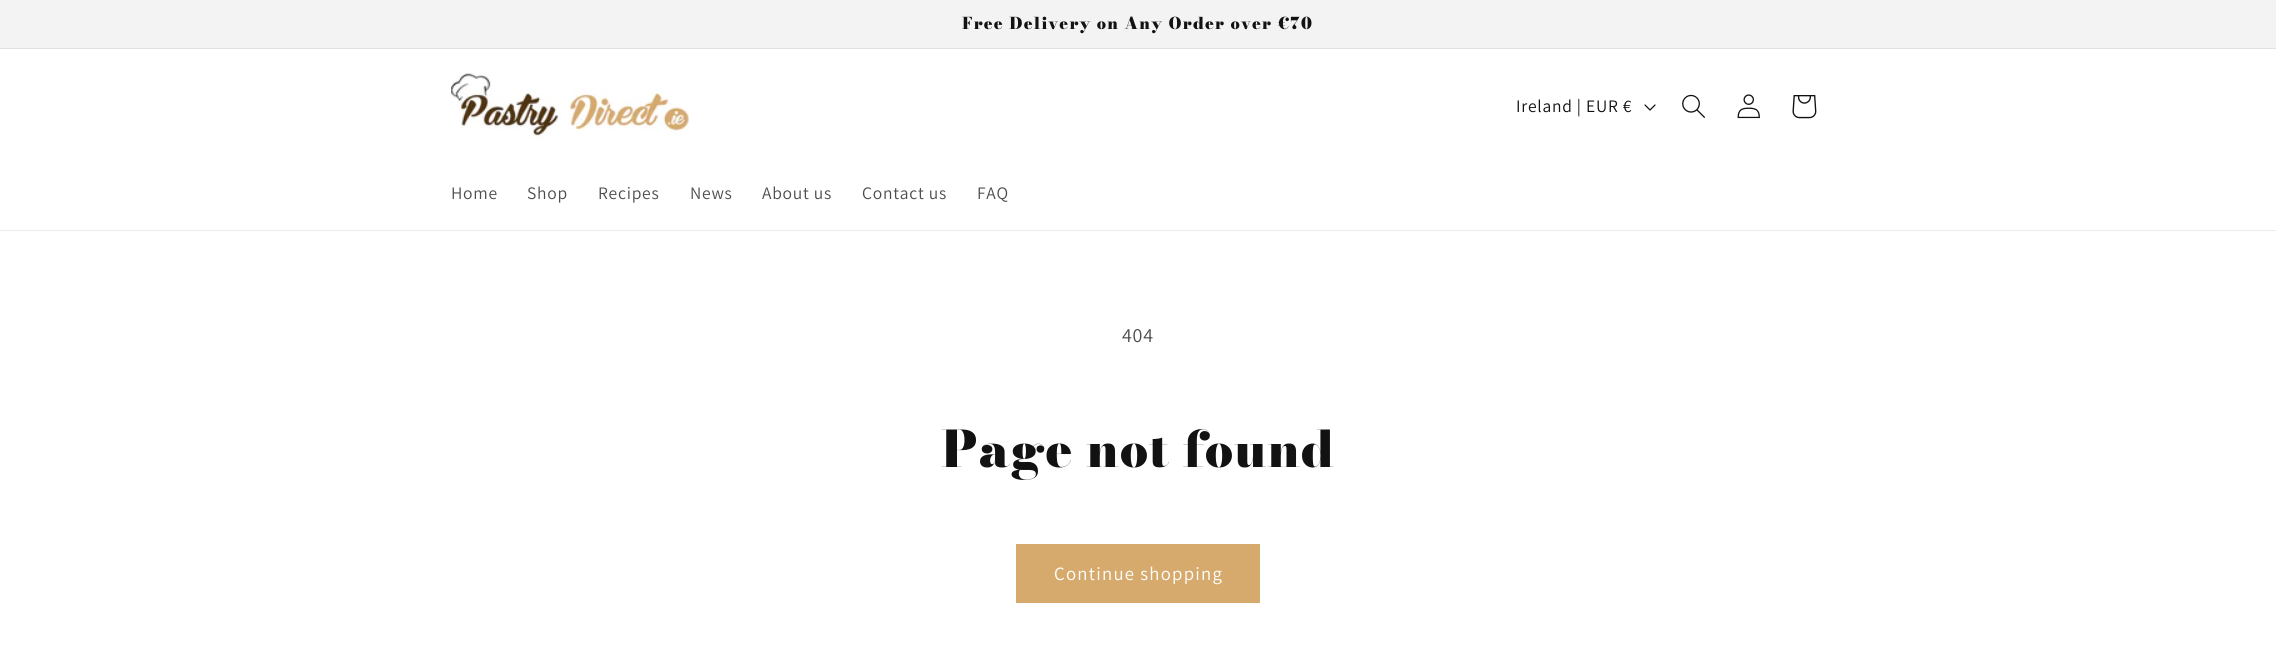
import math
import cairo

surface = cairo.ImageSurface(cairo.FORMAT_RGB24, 2276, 648)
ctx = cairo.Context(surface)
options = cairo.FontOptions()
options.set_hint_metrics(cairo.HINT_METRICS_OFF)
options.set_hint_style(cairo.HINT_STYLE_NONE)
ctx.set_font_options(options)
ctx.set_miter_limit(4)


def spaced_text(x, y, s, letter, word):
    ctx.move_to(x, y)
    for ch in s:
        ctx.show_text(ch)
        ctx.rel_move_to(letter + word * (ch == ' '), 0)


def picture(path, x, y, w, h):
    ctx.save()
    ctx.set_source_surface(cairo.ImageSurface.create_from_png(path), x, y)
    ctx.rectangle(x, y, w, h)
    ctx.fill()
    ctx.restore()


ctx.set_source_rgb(1, 1, 1)
ctx.paint()
ctx.set_source_rgb(0.953, 0.953, 0.953)
ctx.rectangle(0, 0, 2276, 48)
ctx.fill()
ctx.set_source_rgb(0.882, 0.882, 0.882)
ctx.rectangle(0, 48, 2276, 1)
ctx.fill()
ctx.select_font_face("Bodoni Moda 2 Black")
ctx.set_font_size(16.25)
ctx.set_source_rgb(0.071, 0.071, 0.071)
spaced_text(962, 29, "Free Delivery on Any Order over €70", 1.25, 0)
ctx.set_source_rgb(0.925, 0.925, 0.925)
ctx.rectangle(0, 230, 2276, 1)
ctx.fill()
picture("img1.png", 451, 73, 238, 66)
ctx.select_font_face("Assistant")
ctx.set_font_size(17.5)
ctx.set_source_rgb(0.071, 0.071, 0.071)
spaced_text(1516, 112, "Ireland | EUR €", 0.75, 0)
picture("img2.png", 1644, 104, 12, 7)
picture("img3.png", 1682, 94, 23, 24)
picture("img4.png", 1737, 94, 23, 25)
picture("img5.png", 1792, 95, 25, 24)
ctx.set_source_rgb(0.302, 0.302, 0.302)
spaced_text(451, 199, "Home", 0.75, 0)
spaced_text(527, 199, "Shop", 0.75, 0)
spaced_text(598, 199, "Recipes", 0.75, 0)
spaced_text(690, 199, "News", 0.75, 0)
spaced_text(762, 199, "About us", 0.75, 0)
spaced_text(862, 199, "Contact us", 0.75, 0)
spaced_text(977, 199, "FAQ", 0.75, 0)
ctx.set_font_size(20)
spaced_text(1122, 342, "404", 0.75, 0)
ctx.select_font_face("Bodoni Moda Black")
ctx.set_font_size(50)
ctx.set_source_rgb(0.071, 0.071, 0.071)
spaced_text(941, 467, "Page not found", 0.75, 0)
ctx.set_source_rgb(0.839, 0.667, 0.427)
ctx.rectangle(1016, 544, 244, 59)
ctx.fill()
ctx.select_font_face("Assistant")
ctx.set_font_size(18.75)
ctx.set_source_rgb(1, 1, 1)
spaced_text(1054, 580, "Continue shopping", 1.25, 0)
surface.write_to_png("page.png")
